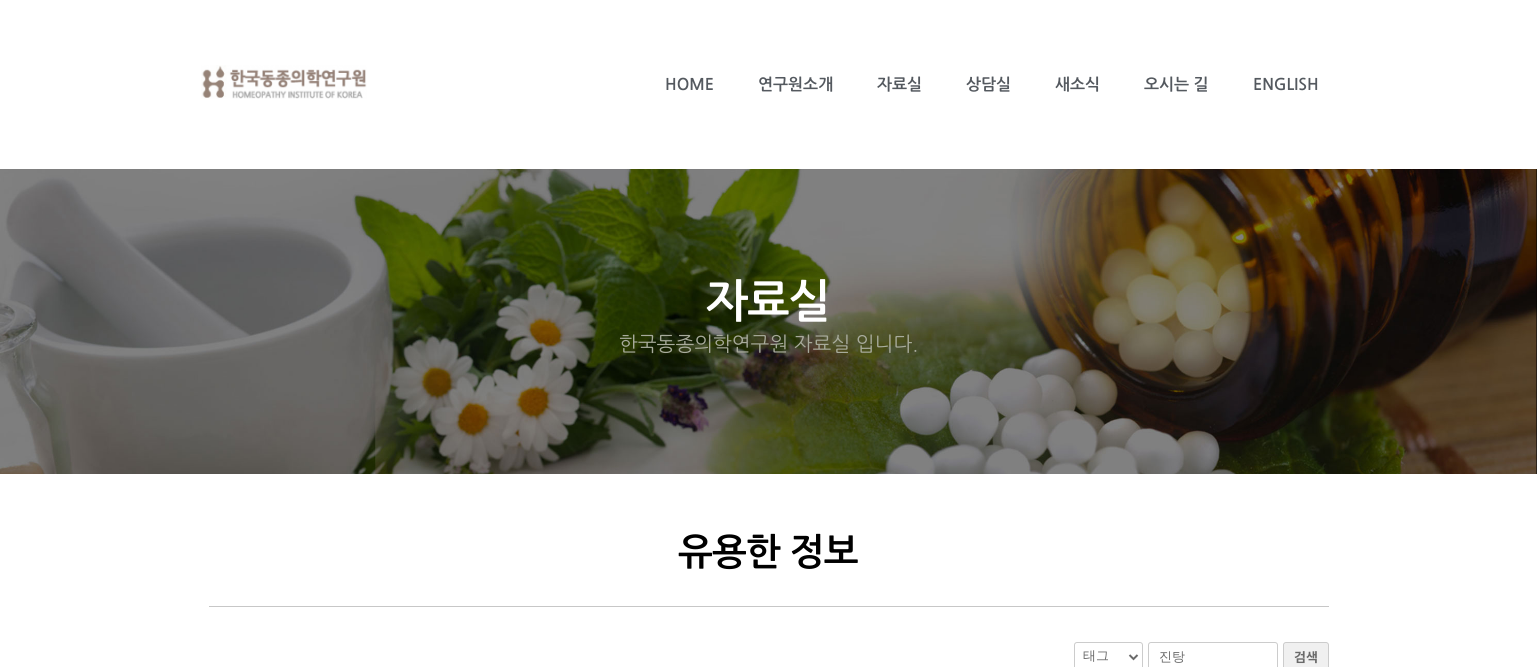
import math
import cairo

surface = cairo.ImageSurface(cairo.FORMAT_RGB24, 1537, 667)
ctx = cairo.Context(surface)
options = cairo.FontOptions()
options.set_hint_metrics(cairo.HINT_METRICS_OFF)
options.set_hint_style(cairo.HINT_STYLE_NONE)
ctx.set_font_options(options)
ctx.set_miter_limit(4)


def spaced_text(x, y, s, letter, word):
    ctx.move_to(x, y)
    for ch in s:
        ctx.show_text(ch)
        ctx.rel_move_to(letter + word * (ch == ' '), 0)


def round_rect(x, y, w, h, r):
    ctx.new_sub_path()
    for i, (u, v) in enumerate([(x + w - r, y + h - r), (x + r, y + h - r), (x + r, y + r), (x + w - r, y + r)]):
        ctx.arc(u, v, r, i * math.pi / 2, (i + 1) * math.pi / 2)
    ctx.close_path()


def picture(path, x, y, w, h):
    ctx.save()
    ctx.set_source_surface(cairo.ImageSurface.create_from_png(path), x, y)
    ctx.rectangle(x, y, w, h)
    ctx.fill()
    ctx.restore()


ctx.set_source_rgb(1, 1, 1)
ctx.paint()
picture("img1.png", 201, 65, 166, 34)
ctx.select_font_face("NanumGothic", cairo.FONT_SLANT_NORMAL, cairo.FONT_WEIGHT_BOLD)
ctx.set_font_size(16)
ctx.set_source_rgb(0.329, 0.349, 0.373)
ctx.move_to(665, 90)
ctx.show_text("HOME")
ctx.move_to(758, 90)
ctx.show_text("연구원소개")
ctx.move_to(877, 90)
ctx.show_text("자료실")
ctx.move_to(966, 90)
ctx.show_text("상담실")
ctx.move_to(1055, 90)
ctx.show_text("새소식")
ctx.move_to(1144, 90)
ctx.show_text("오시는 길")
ctx.move_to(1253, 90)
ctx.show_text("ENGLISH")
picture("img2.png", 0, 169, 1537, 305)
ctx.set_font_size(45)
ctx.set_source_rgb(1, 1, 1)
spaced_text(706, 317, "자료실", -1, 0)
ctx.select_font_face("NanumGothic")
ctx.set_font_size(20)
ctx.set_source_rgb(0.659, 0.671, 0.612)
ctx.move_to(619, 351)
ctx.show_text("한국동종의학연구원 자료실 입니다.")
ctx.select_font_face("NanumGothic", cairo.FONT_SLANT_NORMAL, cairo.FONT_WEIGHT_BOLD)
ctx.set_font_size(37)
ctx.set_source_rgb(0, 0, 0)
spaced_text(678, 565, "유용한 정보", -0.75, 0)
ctx.set_source_rgb(0.78, 0.78, 0.78)
ctx.rectangle(209, 606, 1120, 1)
ctx.fill()
round_rect(1074.5, 642.5, 68, 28, 2.5)
ctx.set_source_rgb(0.8, 0.8, 0.8)
ctx.set_line_width(1)
ctx.stroke()
ctx.new_path()
ctx.move_to(1129.5, 655)
ctx.line_to(1133.5, 659)
ctx.line_to(1137.5, 655)
ctx.set_source_rgb(0.416, 0.416, 0.416)
ctx.set_line_width(2)
ctx.stroke()
ctx.select_font_face("WenQuanYi Zen Hei Medium")
ctx.set_font_size(13)
ctx.move_to(1083, 660)
ctx.show_text("태그")
round_rect(1148.5, 642.5, 129, 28, 2.5)
ctx.set_source_rgb(0.8, 0.8, 0.8)
ctx.set_line_width(1)
ctx.stroke()
ctx.set_source_rgb(0.416, 0.416, 0.416)
ctx.move_to(1159, 661)
ctx.show_text("진탕")
ctx.set_source_rgb(0.941, 0.941, 0.941)
round_rect(1283.5, 642.5, 45, 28, 2.5)
ctx.fill_preserve()
ctx.set_source_rgb(0.8, 0.8, 0.8)
ctx.stroke()
ctx.select_font_face("Noto Sans KR", cairo.FONT_SLANT_NORMAL, cairo.FONT_WEIGHT_BOLD)
ctx.set_source_rgb(0.416, 0.416, 0.416)
ctx.move_to(1294, 662)
ctx.show_text("검색")
surface.write_to_png("page.png")
